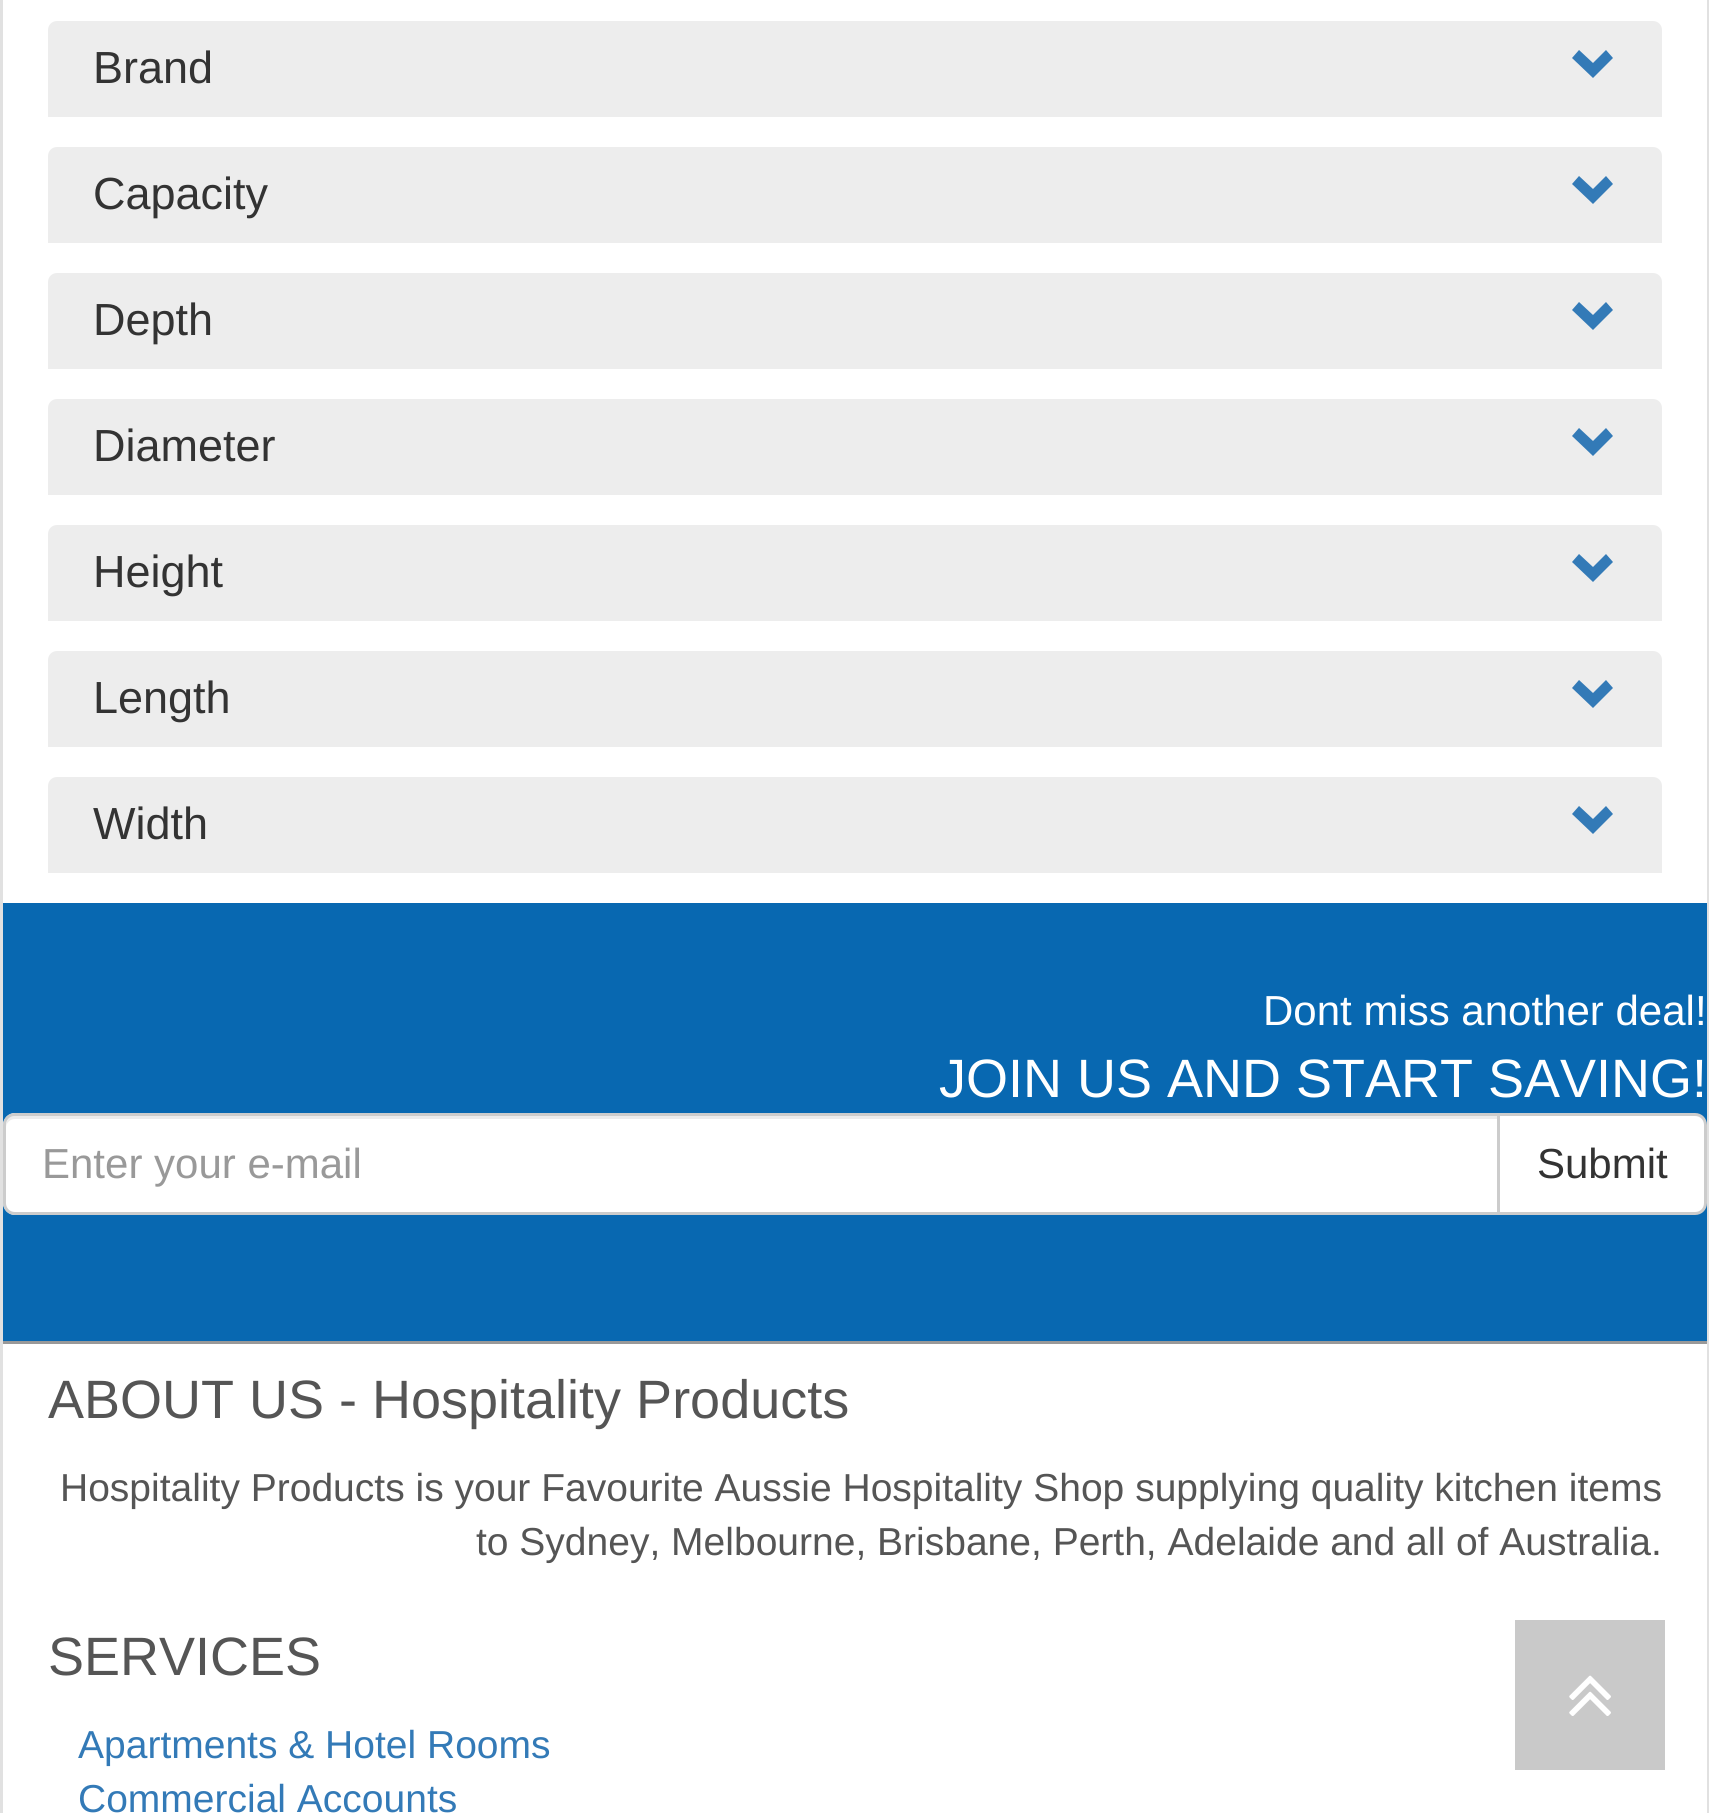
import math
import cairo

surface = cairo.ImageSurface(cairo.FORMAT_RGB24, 1709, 1813)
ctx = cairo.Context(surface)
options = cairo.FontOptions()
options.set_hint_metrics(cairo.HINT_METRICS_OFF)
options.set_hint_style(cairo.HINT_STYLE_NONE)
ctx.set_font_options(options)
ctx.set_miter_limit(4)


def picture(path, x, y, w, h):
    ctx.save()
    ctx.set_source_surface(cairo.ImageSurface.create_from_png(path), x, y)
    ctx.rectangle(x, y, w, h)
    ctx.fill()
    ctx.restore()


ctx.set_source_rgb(1, 1, 1)
ctx.paint()
ctx.set_source_rgb(0.882, 0.882, 0.882)
ctx.rectangle(1707, 0, 2, 1813)
ctx.fill()
ctx.rectangle(0, 0, 3, 1813)
ctx.fill()
ctx.set_source_rgb(0.929, 0.929, 0.929)
ctx.new_path()
ctx.move_to(57, 21)
ctx.line_to(1653, 21)
ctx.curve_to(1658, 21, 1662, 25, 1662, 30)
ctx.line_to(1662, 117)
ctx.line_to(48, 117)
ctx.line_to(48, 30)
ctx.curve_to(48, 25, 52, 21, 57, 21)
ctx.close_path()
ctx.fill()
ctx.select_font_face("Liberation Sans")
ctx.set_font_size(45)
ctx.set_source_rgb(0.2, 0.2, 0.2)
ctx.move_to(93, 83)
ctx.show_text("Brand")
ctx.set_source_rgb(0.2, 0.478, 0.718)
ctx.new_path()
ctx.move_to(1613, 58)
ctx.line_to(1593, 78)
ctx.line_to(1572, 58)
ctx.line_to(1579, 50)
ctx.line_to(1593, 63)
ctx.line_to(1606, 50)
ctx.close_path()
ctx.fill()
ctx.set_source_rgb(0.929, 0.929, 0.929)
ctx.new_path()
ctx.move_to(57, 147)
ctx.line_to(1653, 147)
ctx.curve_to(1658, 147, 1662, 151, 1662, 156)
ctx.line_to(1662, 243)
ctx.line_to(48, 243)
ctx.line_to(48, 156)
ctx.curve_to(48, 151, 52, 147, 57, 147)
ctx.close_path()
ctx.fill()
ctx.set_source_rgb(0.2, 0.2, 0.2)
ctx.move_to(93, 209)
ctx.show_text("Capacity")
ctx.set_source_rgb(0.2, 0.478, 0.718)
ctx.new_path()
ctx.move_to(1613, 184)
ctx.line_to(1593, 204)
ctx.line_to(1572, 184)
ctx.line_to(1579, 176)
ctx.line_to(1593, 189)
ctx.line_to(1606, 176)
ctx.close_path()
ctx.fill()
ctx.set_source_rgb(0.929, 0.929, 0.929)
ctx.new_path()
ctx.move_to(57, 273)
ctx.line_to(1653, 273)
ctx.curve_to(1658, 273, 1662, 277, 1662, 282)
ctx.line_to(1662, 369)
ctx.line_to(48, 369)
ctx.line_to(48, 282)
ctx.curve_to(48, 277, 52, 273, 57, 273)
ctx.close_path()
ctx.fill()
ctx.set_source_rgb(0.2, 0.2, 0.2)
ctx.move_to(93, 335)
ctx.show_text("Depth")
ctx.set_source_rgb(0.2, 0.478, 0.718)
ctx.new_path()
ctx.move_to(1613, 310)
ctx.line_to(1593, 330)
ctx.line_to(1572, 310)
ctx.line_to(1579, 302)
ctx.line_to(1593, 315)
ctx.line_to(1606, 302)
ctx.close_path()
ctx.fill()
ctx.set_source_rgb(0.929, 0.929, 0.929)
ctx.new_path()
ctx.move_to(57, 399)
ctx.line_to(1653, 399)
ctx.curve_to(1658, 399, 1662, 403, 1662, 408)
ctx.line_to(1662, 495)
ctx.line_to(48, 495)
ctx.line_to(48, 408)
ctx.curve_to(48, 403, 52, 399, 57, 399)
ctx.close_path()
ctx.fill()
ctx.set_source_rgb(0.2, 0.2, 0.2)
ctx.move_to(93, 461)
ctx.show_text("Diameter")
ctx.set_source_rgb(0.2, 0.478, 0.718)
ctx.new_path()
ctx.move_to(1613, 436)
ctx.line_to(1593, 456)
ctx.line_to(1572, 436)
ctx.line_to(1579, 428)
ctx.line_to(1593, 441)
ctx.line_to(1606, 428)
ctx.close_path()
ctx.fill()
ctx.set_source_rgb(0.929, 0.929, 0.929)
ctx.new_path()
ctx.move_to(57, 525)
ctx.line_to(1653, 525)
ctx.curve_to(1658, 525, 1662, 529, 1662, 534)
ctx.line_to(1662, 621)
ctx.line_to(48, 621)
ctx.line_to(48, 534)
ctx.curve_to(48, 529, 52, 525, 57, 525)
ctx.close_path()
ctx.fill()
ctx.set_source_rgb(0.2, 0.2, 0.2)
ctx.move_to(93, 587)
ctx.show_text("Height")
ctx.set_source_rgb(0.2, 0.478, 0.718)
ctx.new_path()
ctx.move_to(1613, 562)
ctx.line_to(1593, 582)
ctx.line_to(1572, 562)
ctx.line_to(1579, 554)
ctx.line_to(1593, 567)
ctx.line_to(1606, 554)
ctx.close_path()
ctx.fill()
ctx.set_source_rgb(0.929, 0.929, 0.929)
ctx.new_path()
ctx.move_to(57, 651)
ctx.line_to(1653, 651)
ctx.curve_to(1658, 651, 1662, 655, 1662, 660)
ctx.line_to(1662, 747)
ctx.line_to(48, 747)
ctx.line_to(48, 660)
ctx.curve_to(48, 655, 52, 651, 57, 651)
ctx.close_path()
ctx.fill()
ctx.set_source_rgb(0.2, 0.2, 0.2)
ctx.move_to(93, 713)
ctx.show_text("Length")
ctx.set_source_rgb(0.2, 0.478, 0.718)
ctx.new_path()
ctx.move_to(1613, 688)
ctx.line_to(1593, 708)
ctx.line_to(1572, 688)
ctx.line_to(1579, 680)
ctx.line_to(1593, 693)
ctx.line_to(1606, 680)
ctx.close_path()
ctx.fill()
ctx.set_source_rgb(0.929, 0.929, 0.929)
ctx.new_path()
ctx.move_to(57, 777)
ctx.line_to(1653, 777)
ctx.curve_to(1658, 777, 1662, 781, 1662, 786)
ctx.line_to(1662, 873)
ctx.line_to(48, 873)
ctx.line_to(48, 786)
ctx.curve_to(48, 781, 52, 777, 57, 777)
ctx.close_path()
ctx.fill()
ctx.set_source_rgb(0.2, 0.2, 0.2)
ctx.move_to(93, 839)
ctx.show_text("Width")
ctx.set_source_rgb(0.2, 0.478, 0.718)
ctx.new_path()
ctx.move_to(1613, 814)
ctx.line_to(1593, 834)
ctx.line_to(1572, 814)
ctx.line_to(1579, 806)
ctx.line_to(1593, 819)
ctx.line_to(1606, 806)
ctx.close_path()
ctx.fill()
ctx.set_source_rgb(0.035, 0.408, 0.694)
ctx.rectangle(3, 903, 1704, 438)
ctx.fill()
ctx.set_font_size(42)
ctx.set_source_rgb(1, 1, 1)
ctx.move_to(1263, 1025)
ctx.show_text("Dont miss another deal!")
ctx.set_font_size(54)
ctx.move_to(939, 1097)
ctx.show_text("JOIN US AND START SAVING!")
ctx.new_path()
ctx.move_to(15, 1113)
ctx.line_to(1500, 1113)
ctx.line_to(1500, 1215)
ctx.line_to(15, 1215)
ctx.curve_to(8.5, 1215, 3, 1209.5, 3, 1203)
ctx.line_to(3, 1125)
ctx.curve_to(3, 1118.5, 8.5, 1113, 15, 1113)
ctx.close_path()
ctx.fill()
ctx.set_source_rgb(0.925, 0.925, 0.925)
ctx.new_path()
ctx.move_to(15, 1119)
ctx.line_to(1497, 1119)
ctx.line_to(1497, 1116)
ctx.line_to(15, 1116)
ctx.curve_to(8, 1116, 6, 1122, 6, 1128)
ctx.curve_to(6, 1123, 10, 1119, 15, 1119)
ctx.close_path()
ctx.fill()
ctx.new_path()
ctx.move_to(15, 1114.5)
ctx.line_to(1498.5, 1114.5)
ctx.line_to(1498.5, 1213.5)
ctx.line_to(15, 1213.5)
ctx.curve_to(9, 1213.5, 4.5, 1209, 4.5, 1203)
ctx.line_to(4.5, 1125)
ctx.curve_to(4.5, 1119, 9, 1114.5, 15, 1114.5)
ctx.close_path()
ctx.set_source_rgb(0.8, 0.8, 0.8)
ctx.set_line_width(3)
ctx.stroke()
ctx.set_font_size(42)
ctx.set_source_rgb(0.6, 0.6, 0.6)
ctx.move_to(42, 1178)
ctx.show_text("Enter your e-mail")
ctx.set_source_rgb(1, 1, 1)
ctx.new_path()
ctx.move_to(1498.5, 1114.5)
ctx.line_to(1695, 1114.5)
ctx.curve_to(1701, 1114.5, 1705.5, 1119, 1705.5, 1125)
ctx.line_to(1705.5, 1203)
ctx.curve_to(1705.5, 1209, 1701, 1213.5, 1695, 1213.5)
ctx.line_to(1498.5, 1213.5)
ctx.close_path()
ctx.fill_preserve()
ctx.set_source_rgb(0.8, 0.8, 0.8)
ctx.stroke()
ctx.set_source_rgb(0.2, 0.2, 0.2)
ctx.move_to(1537, 1178)
ctx.show_text("Submit")
ctx.set_source_rgb(0.6, 0.6, 0.6)
ctx.rectangle(3, 1341, 1704, 3)
ctx.fill()
ctx.set_font_size(54)
ctx.set_source_rgb(0.333, 0.333, 0.333)
ctx.move_to(48, 1418)
ctx.show_text("ABOUT US - Hospitality Products")
ctx.set_font_size(39)
ctx.move_to(60, 1501)
ctx.show_text("Hospitality Products is your Favourite Aussie Hospitality Shop supplying quality kitchen items")
ctx.move_to(476, 1555)
ctx.show_text("to Sydney, Melbourne, Brisbane, Perth, Adelaide and all of Australia.")
ctx.set_font_size(54)
ctx.move_to(48, 1675)
ctx.show_text("SERVICES")
ctx.set_font_size(39)
ctx.set_source_rgb(0.2, 0.478, 0.718)
ctx.move_to(78, 1758)
ctx.show_text("Apartments & Hotel Rooms")
ctx.move_to(78, 1812)
ctx.show_text("Commercial Accounts")
ctx.set_source_rgb(0.788, 0.788, 0.788)
ctx.rectangle(1515, 1620, 150, 150)
ctx.fill()
picture("img1.png", 1569, 1675, 42, 41)
surface.write_to_png("page.png")
